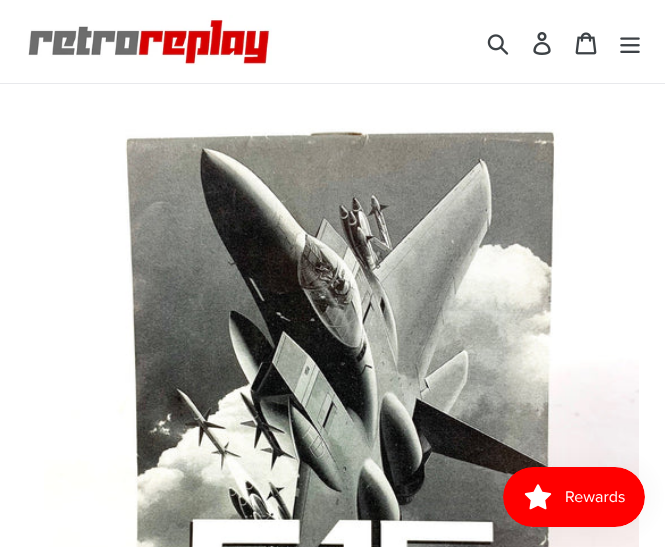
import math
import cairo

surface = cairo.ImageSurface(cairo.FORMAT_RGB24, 665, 547)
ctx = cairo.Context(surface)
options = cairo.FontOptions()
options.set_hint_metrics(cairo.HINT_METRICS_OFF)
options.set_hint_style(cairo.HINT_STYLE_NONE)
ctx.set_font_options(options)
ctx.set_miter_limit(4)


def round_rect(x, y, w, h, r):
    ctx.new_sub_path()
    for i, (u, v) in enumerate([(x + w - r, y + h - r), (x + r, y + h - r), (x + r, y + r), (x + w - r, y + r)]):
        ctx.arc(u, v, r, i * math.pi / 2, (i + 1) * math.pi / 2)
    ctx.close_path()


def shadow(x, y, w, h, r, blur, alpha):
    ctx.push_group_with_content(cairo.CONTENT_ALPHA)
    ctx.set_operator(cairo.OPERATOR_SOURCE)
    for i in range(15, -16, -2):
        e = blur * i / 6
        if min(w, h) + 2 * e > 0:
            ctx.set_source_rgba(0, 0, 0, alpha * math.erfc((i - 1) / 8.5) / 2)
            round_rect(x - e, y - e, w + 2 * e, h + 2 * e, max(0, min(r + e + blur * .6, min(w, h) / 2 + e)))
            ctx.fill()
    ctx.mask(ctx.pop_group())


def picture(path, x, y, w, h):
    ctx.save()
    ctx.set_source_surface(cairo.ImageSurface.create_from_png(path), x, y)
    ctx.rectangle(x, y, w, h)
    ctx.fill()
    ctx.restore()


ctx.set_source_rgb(1, 1, 1)
ctx.paint()
ctx.set_source_rgb(0.91, 0.914, 0.922)
ctx.rectangle(0, 83, 665, 1)
ctx.fill()
picture("img1.png", 28, 15, 244, 50)
picture("img2.png", 487, 34, 22, 21)
picture("img3.png", 533, 32, 18, 23)
picture("img4.png", 575, 32, 22, 23)
picture("img5.png", 620, 37, 20, 16)
picture("img6.png", 44, 128, 595, 419)
ctx.set_source_rgb(0, 0, 0)
shadow(503, 467, 142, 60, 30, 12.5, 0.05)
picture("img7.png", 503, 467, 142, 60)
surface.write_to_png("page.png")
